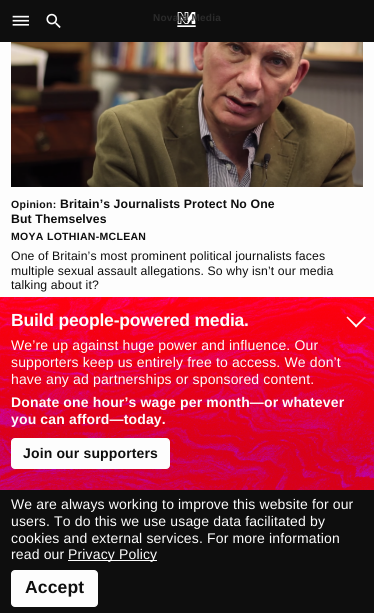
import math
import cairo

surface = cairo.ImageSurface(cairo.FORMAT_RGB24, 374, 613)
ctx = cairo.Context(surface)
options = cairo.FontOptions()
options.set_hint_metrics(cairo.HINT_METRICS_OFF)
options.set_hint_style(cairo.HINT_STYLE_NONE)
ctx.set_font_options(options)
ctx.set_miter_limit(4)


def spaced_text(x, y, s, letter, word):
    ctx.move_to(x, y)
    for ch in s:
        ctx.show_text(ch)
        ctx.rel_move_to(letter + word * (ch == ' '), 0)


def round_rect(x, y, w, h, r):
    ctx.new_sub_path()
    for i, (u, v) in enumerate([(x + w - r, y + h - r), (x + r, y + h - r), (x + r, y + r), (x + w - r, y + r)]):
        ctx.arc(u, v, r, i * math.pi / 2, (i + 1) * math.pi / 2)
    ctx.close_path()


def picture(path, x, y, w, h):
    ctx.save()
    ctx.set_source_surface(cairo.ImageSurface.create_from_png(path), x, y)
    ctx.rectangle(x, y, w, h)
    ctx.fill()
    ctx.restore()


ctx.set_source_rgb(0.992, 0.992, 0.992)
ctx.paint()
ctx.set_source_rgb(0.055, 0.055, 0.055)
ctx.rectangle(0, 0, 374, 42)
ctx.fill()
picture("img1.png", 12, 15, 17, 11)
picture("img2.png", 46, 13, 15, 15)
picture("img3.png", 177, 12, 19, 15)
ctx.select_font_face("Liberation Sans", cairo.FONT_SLANT_NORMAL, cairo.FONT_WEIGHT_BOLD)
ctx.set_font_size(10)
ctx.set_source_rgb(0.165, 0.165, 0.165)
spaced_text(153, 21, "Novara Media", 0.25, 0)
picture("img4.png", 11, 42, 352, 145)
ctx.set_font_size(10.5)
ctx.set_source_rgb(0.055, 0.055, 0.055)
spaced_text(11, 208, "Opinion:", 0.3, 0)
ctx.set_font_size(12.25)
spaced_text(60, 208, "Britain’s Journalists Protect No One", 0.12, 0)
spaced_text(11, 223, "But Themselves", 0.12, 0)
ctx.set_font_size(10.5)
spaced_text(11, 240, "MOYA LOTHIAN-MCLEAN", 0.3, 0)
ctx.select_font_face("Liberation Sans")
ctx.set_font_size(12.25)
spaced_text(11, 260, "One of Britain’s most prominent political journalists faces", 0.12, 0)
spaced_text(11, 275, "multiple sexual assault allegations. So why isn’t our media", 0.12, 0)
spaced_text(11, 289, "talking about it?", 0.12, 0)
picture("img5.png", 0, 297, 374, 193)
ctx.select_font_face("Liberation Sans", cairo.FONT_SLANT_NORMAL, cairo.FONT_WEIGHT_BOLD)
ctx.set_font_size(17.5)
ctx.set_source_rgb(0.992, 0.992, 0.992)
spaced_text(11, 326, "Build people-powered media.", -0.2, 0)
ctx.new_path()
ctx.move_to(364.5, 316.5)
ctx.line_to(366, 317.5)
ctx.line_to(356, 327.5)
ctx.line_to(355, 326)
ctx.close_path()
ctx.fill()
ctx.new_path()
ctx.move_to(347.5, 316.5)
ctx.line_to(357.5, 326)
ctx.line_to(356, 327.5)
ctx.line_to(346.5, 317.5)
ctx.close_path()
ctx.fill()
ctx.select_font_face("Liberation Sans")
ctx.set_font_size(14)
spaced_text(11, 350, "We’re up against huge power and influence. Our", 0.15, 0)
spaced_text(11, 367, "supporters keep us entirely free to access. We don’t", 0.15, 0)
spaced_text(11, 384, "have any ad partnerships or sponsored content.", 0.15, 0)
ctx.select_font_face("Liberation Sans", cairo.FONT_SLANT_NORMAL, cairo.FONT_WEIGHT_BOLD)
spaced_text(11, 407, "Donate one hour’s wage per month—or whatever", 0.15, 0)
spaced_text(11, 424, "you can afford—today.", 0.15, 0)
round_rect(11.5, 438.5, 158, 30, 3.5)
ctx.fill_preserve()
ctx.set_line_width(1)
ctx.stroke()
ctx.set_source_rgb(0.055, 0.055, 0.055)
spaced_text(23, 458, "Join our supporters", 0.15, 0)
ctx.rectangle(0, 490, 374, 123)
ctx.fill()
ctx.select_font_face("Liberation Sans")
ctx.set_source_rgb(0.992, 0.992, 0.992)
spaced_text(11, 509, "We are always working to improve this website for our", 0.15, 0)
spaced_text(11, 526, "users. To do this we use usage data facilitated by", 0.15, 0)
spaced_text(11, 543, "cookies and external services. For more information", 0.15, 0)
spaced_text(11, 559, "read our", 0.15, 0)
ctx.rectangle(68, 560, 89, 1)
ctx.fill()
spaced_text(68, 559, "Privacy Policy", 0.15, 0)
round_rect(11.5, 570.5, 86, 36, 3.5)
ctx.fill_preserve()
ctx.stroke()
ctx.select_font_face("Liberation Sans", cairo.FONT_SLANT_NORMAL, cairo.FONT_WEIGHT_BOLD)
ctx.set_font_size(17.5)
ctx.set_source_rgb(0.055, 0.055, 0.055)
spaced_text(25, 593, "Accept", 0.15, 0)
surface.write_to_png("page.png")
